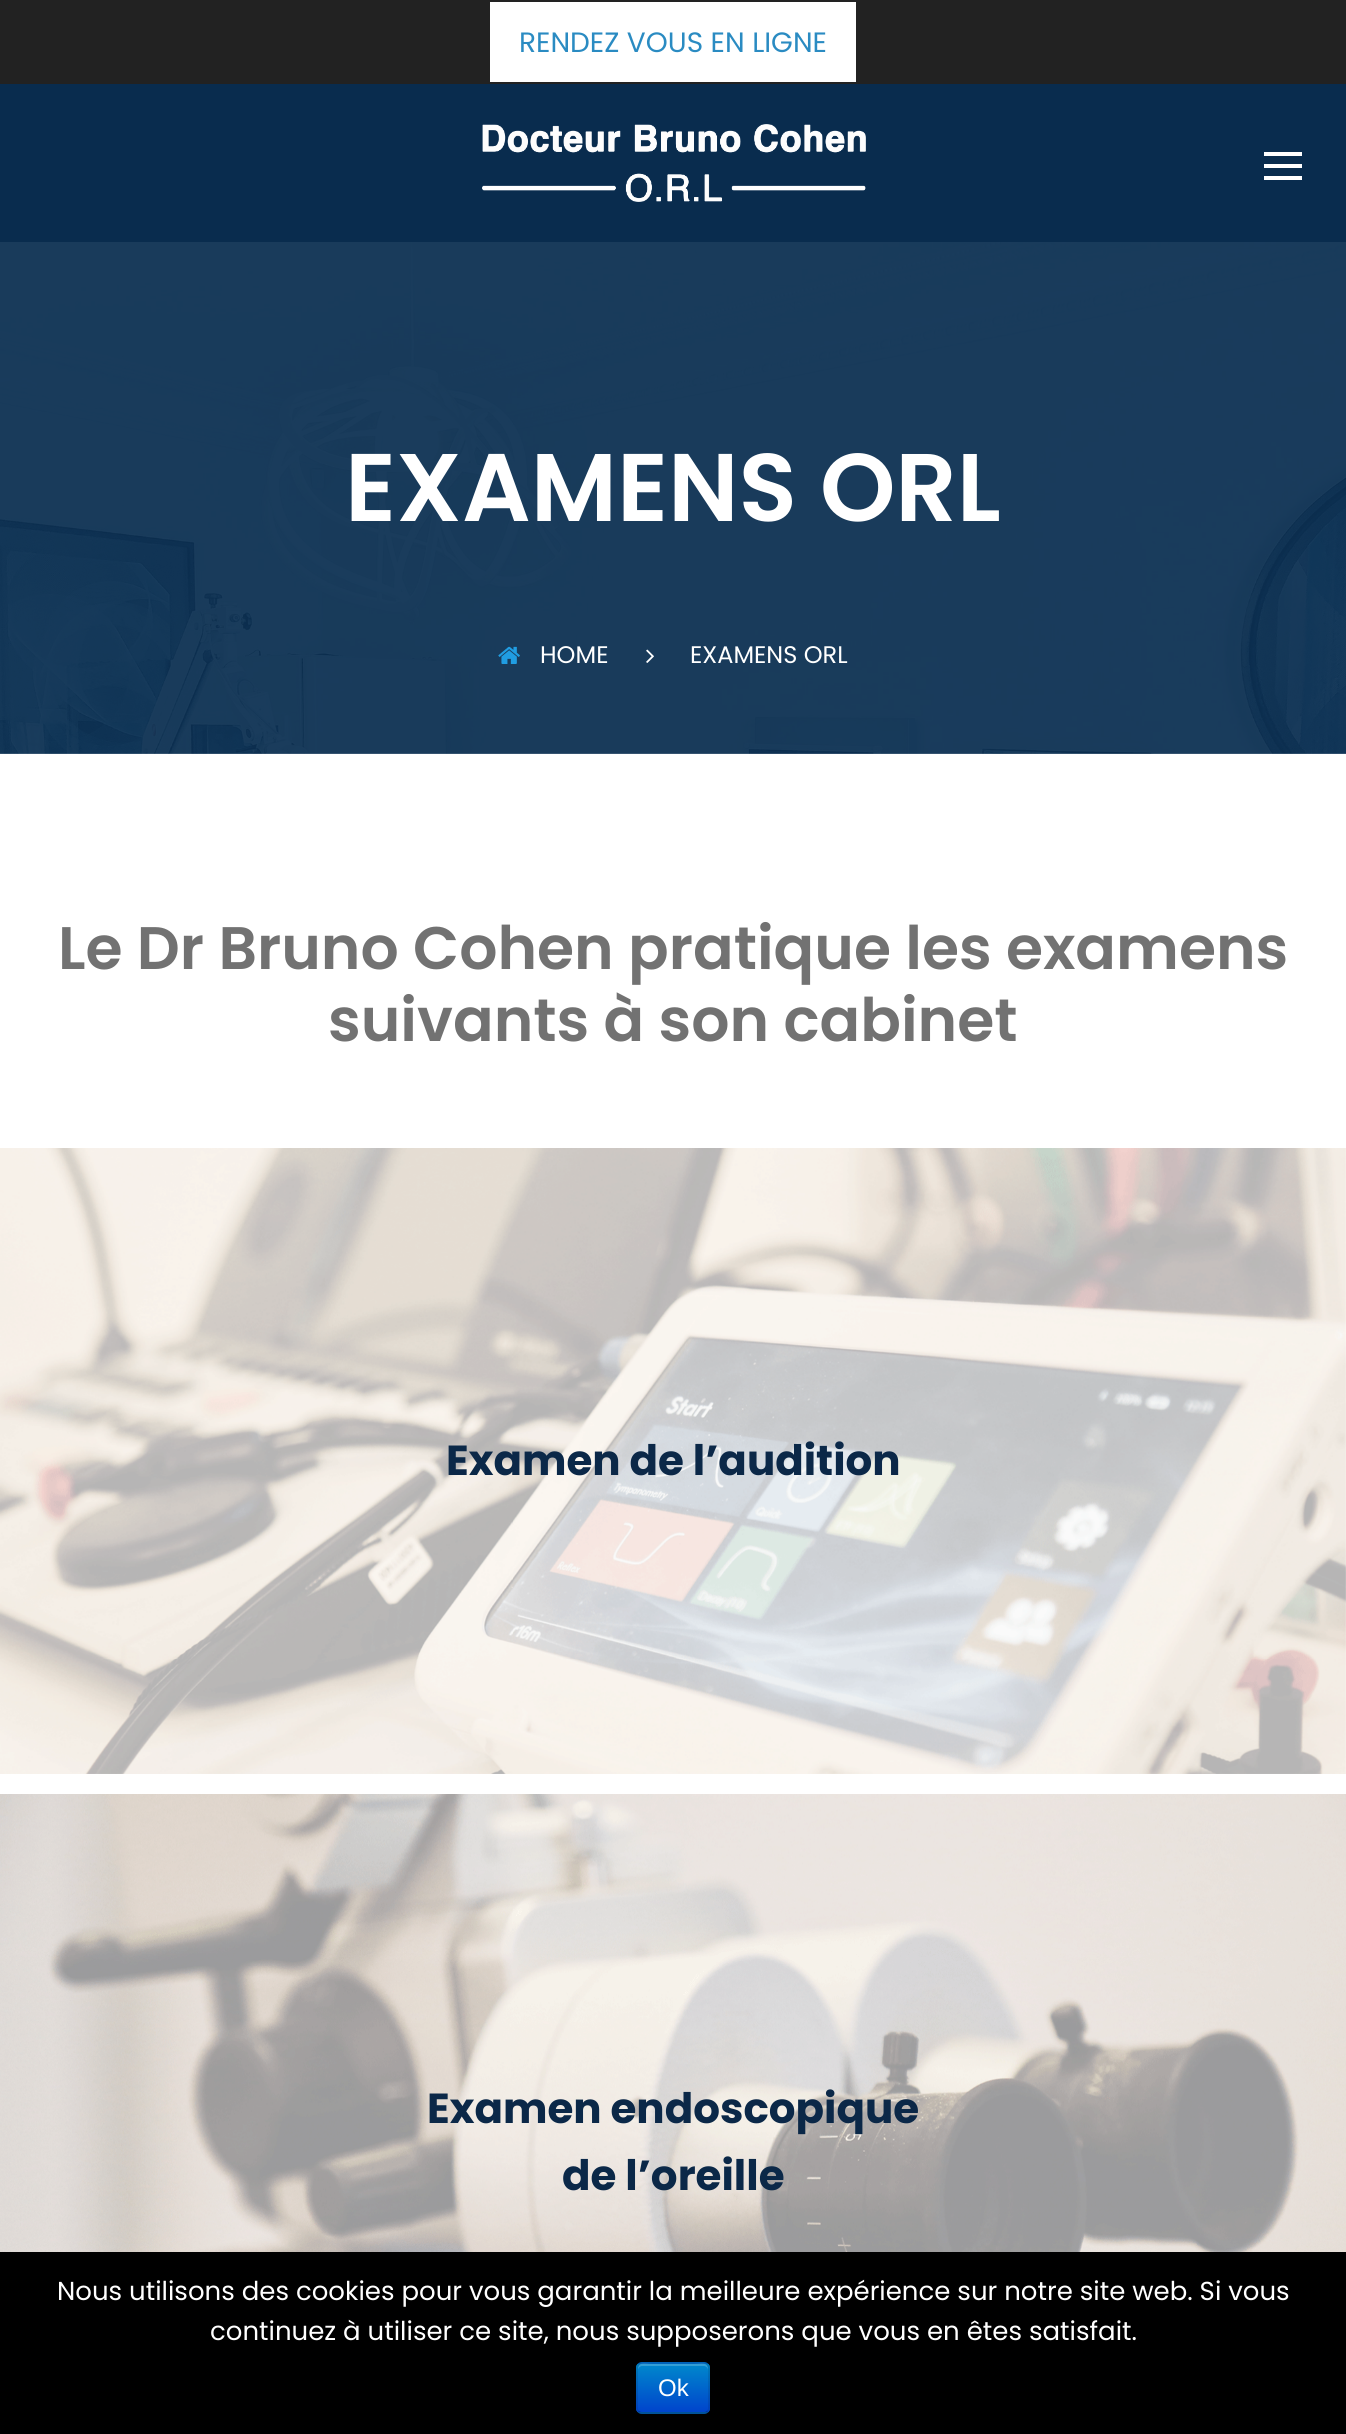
import math
import cairo

surface = cairo.ImageSurface(cairo.FORMAT_RGB24, 1346, 2434)
ctx = cairo.Context(surface)
options = cairo.FontOptions()
options.set_hint_metrics(cairo.HINT_METRICS_OFF)
options.set_hint_style(cairo.HINT_STYLE_NONE)
ctx.set_font_options(options)
ctx.set_miter_limit(4)


def round_rect(x, y, w, h, r):
    ctx.new_sub_path()
    for i, (u, v) in enumerate([(x + w - r, y + h - r), (x + r, y + h - r), (x + r, y + r), (x + w - r, y + r)]):
        ctx.arc(u, v, r, i * math.pi / 2, (i + 1) * math.pi / 2)
    ctx.close_path()


def picture(path, x, y, w, h):
    ctx.save()
    ctx.set_source_surface(cairo.ImageSurface.create_from_png(path), x, y)
    ctx.rectangle(x, y, w, h)
    ctx.fill()
    ctx.restore()


ctx.set_source_rgb(1, 1, 1)
ctx.paint()
ctx.set_source_rgb(0.133, 0.133, 0.133)
ctx.rectangle(0, 0, 1346, 84)
ctx.fill()
ctx.set_source_rgb(1, 1, 1)
ctx.rectangle(490, 2, 366, 80)
ctx.fill()
ctx.select_font_face("Poppins")
ctx.set_font_size(28)
ctx.set_source_rgb(0.165, 0.545, 0.761)
ctx.move_to(519, 52)
ctx.show_text("RENDEZ VOUS EN LIGNE")
ctx.set_source_rgb(0.039, 0.173, 0.306)
ctx.rectangle(0, 84, 1346, 158)
ctx.fill()
picture("img1.png", 482, 124, 384, 78)
ctx.set_source_rgb(1, 1, 1)
ctx.rectangle(1264, 164, 38, 4)
ctx.fill()
ctx.rectangle(1264, 152, 38, 4)
ctx.fill()
ctx.rectangle(1264, 176, 38, 4)
ctx.fill()
picture("img2.png", 0, 242, 1346, 512)
ctx.select_font_face("Poppins SemiBold")
ctx.set_font_size(96)
ctx.move_to(345, 521)
ctx.show_text("EXAMENS ORL")
picture("img3.png", 498, 646, 22, 18)
ctx.select_font_face("Poppins")
ctx.set_font_size(24)
ctx.move_to(540, 663)
ctx.show_text("HOME")
picture("img4.png", 646, 649, 8, 14)
ctx.move_to(690, 663)
ctx.show_text("EXAMENS ORL")
ctx.select_font_face("Poppins SemiBold")
ctx.set_font_size(60)
ctx.set_source_rgb(0.447, 0.447, 0.447)
ctx.move_to(58, 969)
ctx.show_text("Le Dr Bruno Cohen pratique les examens")
ctx.move_to(328, 1041)
ctx.show_text("suivants à son cabinet")
picture("img5.png", 0, 1148, 1346, 626)
ctx.select_font_face("Poppins", cairo.FONT_SLANT_NORMAL, cairo.FONT_WEIGHT_BOLD)
ctx.set_font_size(42)
ctx.set_source_rgb(0.043, 0.157, 0.282)
ctx.move_to(446, 1475)
ctx.show_text("Examen de l’audition")
picture("img6.png", 0, 1794, 1346, 458)
ctx.move_to(427, 2123)
ctx.show_text("Examen endoscopique")
ctx.move_to(562, 2190)
ctx.show_text("de l’oreille")
ctx.set_source_rgb(0, 0, 0)
ctx.rectangle(0, 2252, 1346, 182)
ctx.fill()
ctx.select_font_face("Poppins")
ctx.set_font_size(26)
ctx.set_source_rgb(1, 1, 1)
ctx.move_to(57, 2300)
ctx.show_text("Nous utilisons des cookies pour vous garantir la meilleure expérience sur notre site web. Si vous")
ctx.move_to(210, 2340)
ctx.show_text("continuez à utiliser ce site, nous supposerons que vous en êtes satisfait.")
ctx.set_source_rgb(0, 0.427, 0.8)
round_rect(636, 2362, 74, 52, 6)
ctx.fill()
ctx.save()
round_rect(636, 2362, 74, 52, 6)
ctx.clip()
gradient = cairo.LinearGradient(673, 2364, 673, 2412)
gradient.add_color_stop_rgba(0, 0, 0.533, 0.8, 1)
gradient.add_color_stop_rgba(1, 0, 0.267, 0.8, 1)
ctx.set_source(gradient)
ctx.rectangle(636, 2364, 74, 48)
ctx.fill()
ctx.restore()
ctx.set_source_rgba(1, 1, 1, 0.2)
ctx.new_path()
ctx.move_to(642, 2366)
ctx.line_to(704, 2366)
ctx.curve_to(706, 2366, 708, 2368, 708, 2370)
ctx.curve_to(708, 2361, 701, 2364, 694, 2364)
ctx.line_to(652, 2364)
ctx.curve_to(645, 2364, 638, 2361, 638, 2370)
ctx.curve_to(638, 2368, 640, 2366, 642, 2366)
ctx.close_path()
ctx.fill()
ctx.new_path()
ctx.move_to(707.5, 2411.5)
ctx.curve_to(706.5, 2412.5, 705.5, 2413, 704, 2413)
ctx.line_to(642, 2413)
ctx.curve_to(640.5, 2413, 639.5, 2412.5, 638.5, 2411.5)
ctx.set_source_rgba(0, 0, 0, 0.25)
ctx.stroke()
ctx.new_path()
ctx.move_to(638.5, 2411.5)
ctx.curve_to(637.5, 2410.5, 637, 2409.5, 637, 2408)
ctx.line_to(637, 2368)
ctx.curve_to(637, 2366.5, 637.5, 2365.5, 638.5, 2364.5)
ctx.curve_to(639.5, 2363.5, 640.5, 2363, 642, 2363)
ctx.line_to(704, 2363)
ctx.curve_to(705.5, 2363, 706.5, 2363.5, 707.5, 2364.5)
ctx.curve_to(708.5, 2365.5, 709, 2366.5, 709, 2368)
ctx.line_to(709, 2408)
ctx.curve_to(709, 2409.5, 708.5, 2410.5, 707.5, 2411.5)
ctx.set_source_rgba(0, 0, 0, 0.1)
ctx.stroke()
ctx.select_font_face("Liberation Sans")
ctx.set_font_size(24)
ctx.set_source_rgb(1, 1, 1)
ctx.move_to(658, 2396)
ctx.show_text("Ok")
surface.write_to_png("page.png")
